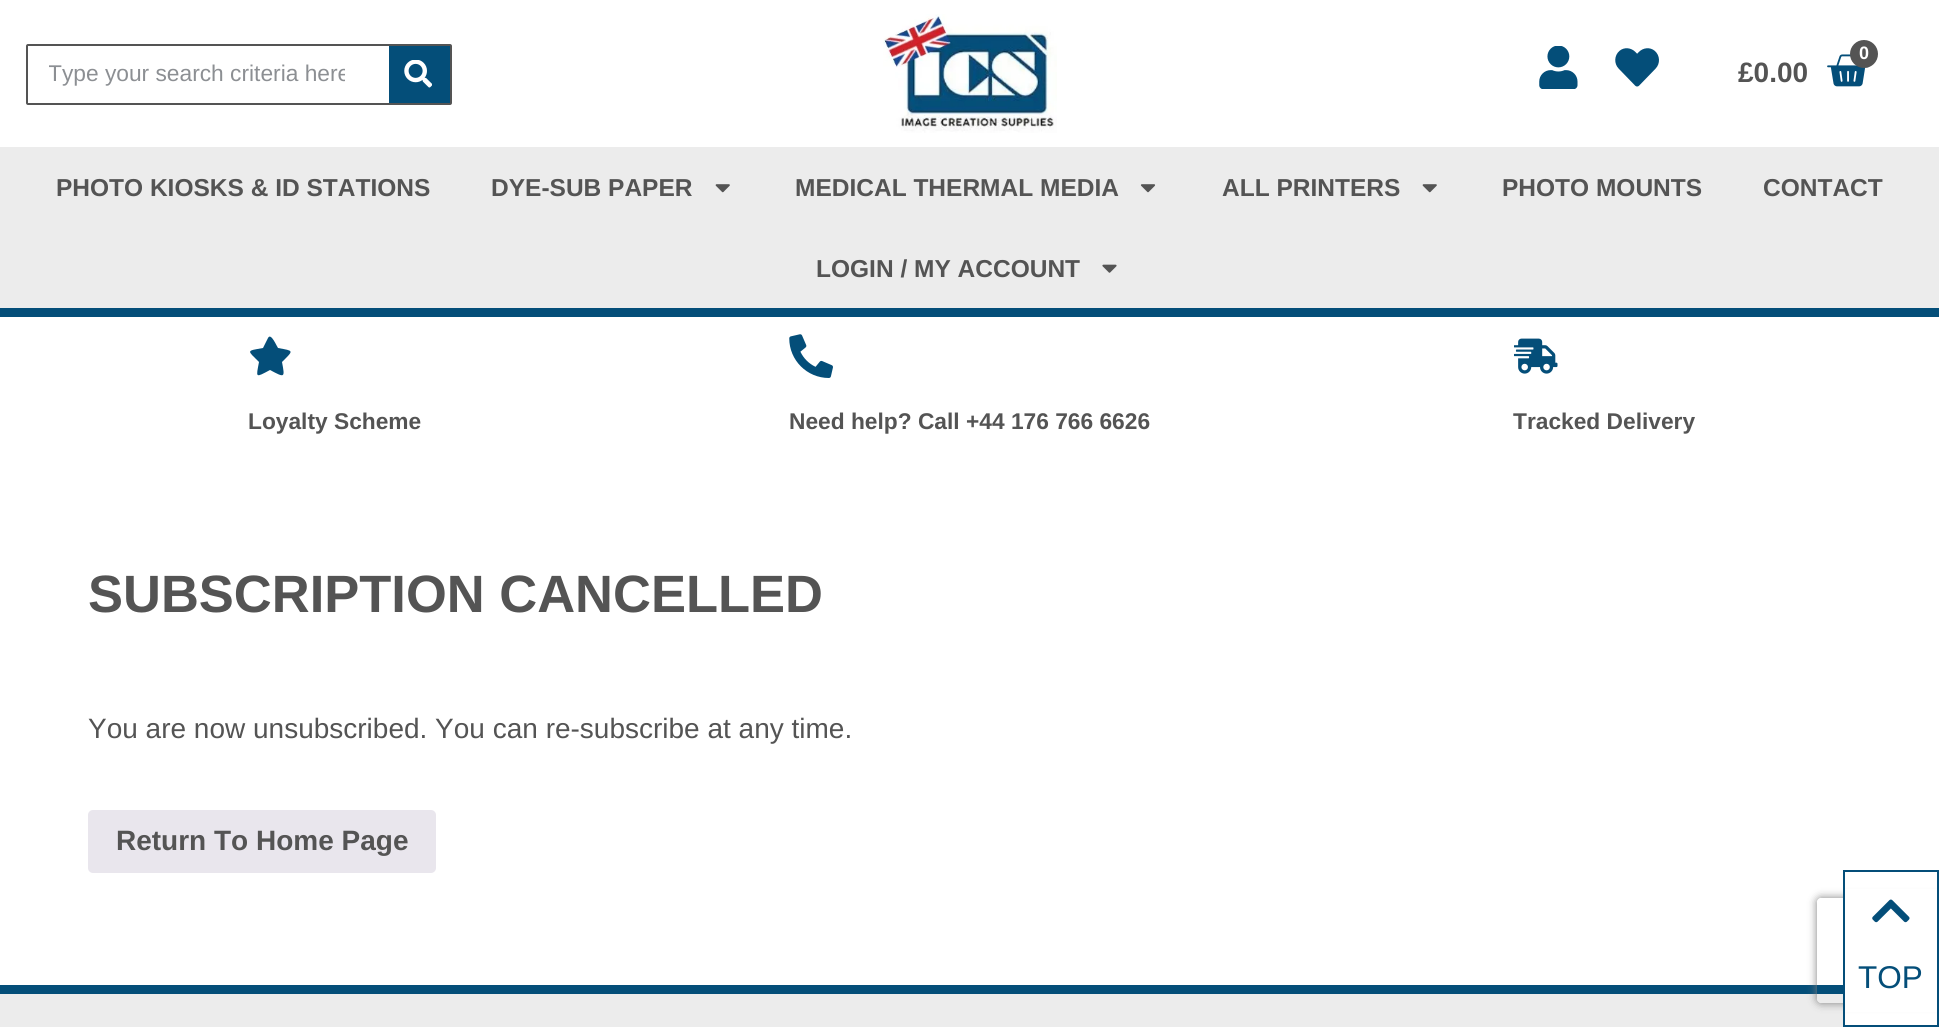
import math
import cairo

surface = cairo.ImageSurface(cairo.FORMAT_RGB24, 1939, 1027)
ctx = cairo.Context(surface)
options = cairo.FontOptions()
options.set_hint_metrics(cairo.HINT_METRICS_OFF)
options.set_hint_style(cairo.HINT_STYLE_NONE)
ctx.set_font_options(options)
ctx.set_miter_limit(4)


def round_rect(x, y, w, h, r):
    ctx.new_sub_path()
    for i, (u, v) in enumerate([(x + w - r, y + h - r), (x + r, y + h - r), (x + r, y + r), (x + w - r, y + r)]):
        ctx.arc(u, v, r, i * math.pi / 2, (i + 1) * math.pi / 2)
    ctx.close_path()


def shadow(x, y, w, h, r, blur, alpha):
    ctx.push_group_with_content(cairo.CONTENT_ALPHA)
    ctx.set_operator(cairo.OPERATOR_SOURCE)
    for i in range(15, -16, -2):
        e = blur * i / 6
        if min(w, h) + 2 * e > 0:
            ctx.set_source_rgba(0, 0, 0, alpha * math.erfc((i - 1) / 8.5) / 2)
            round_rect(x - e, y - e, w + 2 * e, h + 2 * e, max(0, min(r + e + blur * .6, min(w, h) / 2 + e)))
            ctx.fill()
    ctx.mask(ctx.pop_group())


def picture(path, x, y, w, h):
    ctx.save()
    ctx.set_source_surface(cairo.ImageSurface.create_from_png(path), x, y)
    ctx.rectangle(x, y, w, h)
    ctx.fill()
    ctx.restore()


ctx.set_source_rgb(1, 1, 1)
ctx.paint()
round_rect(27, 45, 424, 59, 1)
ctx.set_source_rgb(0.329, 0.329, 0.329)
ctx.stroke()
ctx.save()
ctx.rectangle(49, 61, 296, 27)
ctx.clip()
ctx.select_font_face("Liberation Sans")
ctx.set_font_size(22.75)
ctx.set_source_rgb(0.549, 0.561, 0.576)
ctx.move_to(48, 81)
ctx.show_text("Type your search criteria here")
ctx.restore()
ctx.set_source_rgb(0.016, 0.306, 0.475)
ctx.rectangle(389, 46, 61, 57)
ctx.fill()
picture("img1.png", 404, 60, 28, 28)
picture("img2.png", 1539, 46, 39, 43)
picture("img3.png", 1615, 48, 44, 39)
picture("img4.png", 1827, 54, 42, 33)
ctx.set_source_rgb(0.329, 0.329, 0.329)
ctx.arc(1864, 54, 14, 0, 2 * math.pi)
ctx.fill()
ctx.select_font_face("Liberation Sans", cairo.FONT_SLANT_NORMAL, cairo.FONT_WEIGHT_BOLD)
ctx.set_font_size(18)
ctx.set_source_rgb(1, 1, 1)
ctx.move_to(1859, 59)
ctx.show_text("0")
ctx.set_font_size(28)
ctx.set_source_rgb(0.329, 0.329, 0.329)
ctx.move_to(1738, 82)
ctx.show_text("£0.00")
picture("img5.png", 883, 14, 174, 119)
ctx.set_source_rgb(0.922, 0.922, 0.922)
ctx.rectangle(0, 994, 1843, 33)
ctx.fill()
ctx.set_source_rgb(0.016, 0.306, 0.475)
ctx.rectangle(0, 985, 1843, 9)
ctx.fill()
ctx.save()
ctx.set_fill_rule(cairo.FILL_RULE_EVEN_ODD)
ctx.new_path()
ctx.move_to(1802, 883)
ctx.line_to(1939, 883)
ctx.line_to(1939, 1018)
ctx.line_to(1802, 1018)
ctx.close_path()
ctx.move_to(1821, 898)
ctx.line_to(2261, 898)
ctx.curve_to(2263, 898, 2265, 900, 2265, 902)
ctx.line_to(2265, 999)
ctx.curve_to(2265, 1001, 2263, 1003, 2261, 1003)
ctx.line_to(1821, 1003)
ctx.curve_to(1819, 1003, 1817, 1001, 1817, 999)
ctx.line_to(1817, 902)
ctx.curve_to(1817, 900, 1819, 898, 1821, 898)
ctx.close_path()
ctx.clip()
ctx.set_source_rgb(0.502, 0.502, 0.502)
shadow(1817, 898, 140, 105, 4, 4.5, 1)
ctx.restore()
ctx.set_source_rgb(1, 1, 1)
ctx.rectangle(1845, 889, 92, 123)
ctx.fill()
ctx.rectangle(1844, 871, 94, 155)
ctx.set_source_rgb(0.016, 0.306, 0.475)
ctx.stroke()
picture("img6.png", 1872, 899, 38, 24)
ctx.select_font_face("Liberation Sans")
ctx.set_font_size(31.5)
ctx.move_to(1858, 988)
ctx.show_text("TOP")
ctx.set_source_rgb(0.922, 0.922, 0.922)
ctx.rectangle(0, 147, 1939, 161)
ctx.fill()
ctx.set_source_rgb(0.016, 0.306, 0.475)
ctx.rectangle(0, 308, 1939, 9)
ctx.fill()
ctx.select_font_face("Liberation Sans", cairo.FONT_SLANT_NORMAL, cairo.FONT_WEIGHT_BOLD)
ctx.set_font_size(24.5)
ctx.set_source_rgb(0.329, 0.329, 0.329)
ctx.move_to(56, 196)
ctx.show_text("PHOTO KIOSKS & ID STATIONS")
ctx.move_to(491, 196)
ctx.show_text("DYE-SUB PAPER")
picture("img7.png", 715, 184, 15, 9)
ctx.move_to(795, 196)
ctx.show_text("MEDICAL THERMAL MEDIA")
picture("img8.png", 1140, 184, 16, 9)
ctx.move_to(1222, 196)
ctx.show_text("ALL PRINTERS")
picture("img7.png", 1422, 184, 15, 9)
ctx.move_to(1502, 196)
ctx.show_text("PHOTO MOUNTS")
ctx.move_to(1763, 196)
ctx.show_text("CONTACT")
ctx.move_to(816, 277)
ctx.show_text("LOGIN / MY ACCOUNT")
picture("img9.png", 1102, 264, 15, 9)
ctx.set_source_rgb(0.016, 0.306, 0.475)
ctx.new_path()
ctx.move_to(268, 338)
ctx.line_to(263, 348)
ctx.curve_to(246, 351, 247, 350, 259, 362)
ctx.curve_to(256, 378, 255, 378, 270, 370)
ctx.curve_to(285, 378, 285, 378, 282, 362)
ctx.curve_to(294, 350, 294, 351, 278, 348)
ctx.curve_to(277, 347, 271, 332, 268, 338)
ctx.close_path()
ctx.fill()
ctx.set_font_size(22.75)
ctx.set_source_rgb(0.329, 0.329, 0.329)
ctx.move_to(248, 429)
ctx.show_text("Loyalty Scheme")
picture("img10.png", 789, 334, 44, 44)
ctx.move_to(789, 429)
ctx.show_text("Need help? Call +44 176 766 6626")
picture("img11.png", 1514, 338, 44, 36)
ctx.move_to(1513, 429)
ctx.show_text("Tracked Delivery")
ctx.set_font_size(52.5)
ctx.move_to(88, 612)
ctx.show_text("SUBSCRIPTION CANCELLED")
ctx.select_font_face("Liberation Sans")
ctx.set_font_size(28)
ctx.move_to(88, 738)
ctx.show_text("You are now unsubscribed. You can re-subscribe at any time.")
ctx.set_source_rgb(0.914, 0.902, 0.929)
round_rect(88, 810, 348, 63, 5)
ctx.fill()
ctx.select_font_face("Liberation Sans", cairo.FONT_SLANT_NORMAL, cairo.FONT_WEIGHT_BOLD)
ctx.set_source_rgb(0.329, 0.329, 0.329)
ctx.move_to(116, 850)
ctx.show_text("Return To Home Page")
surface.write_to_png("page.png")
